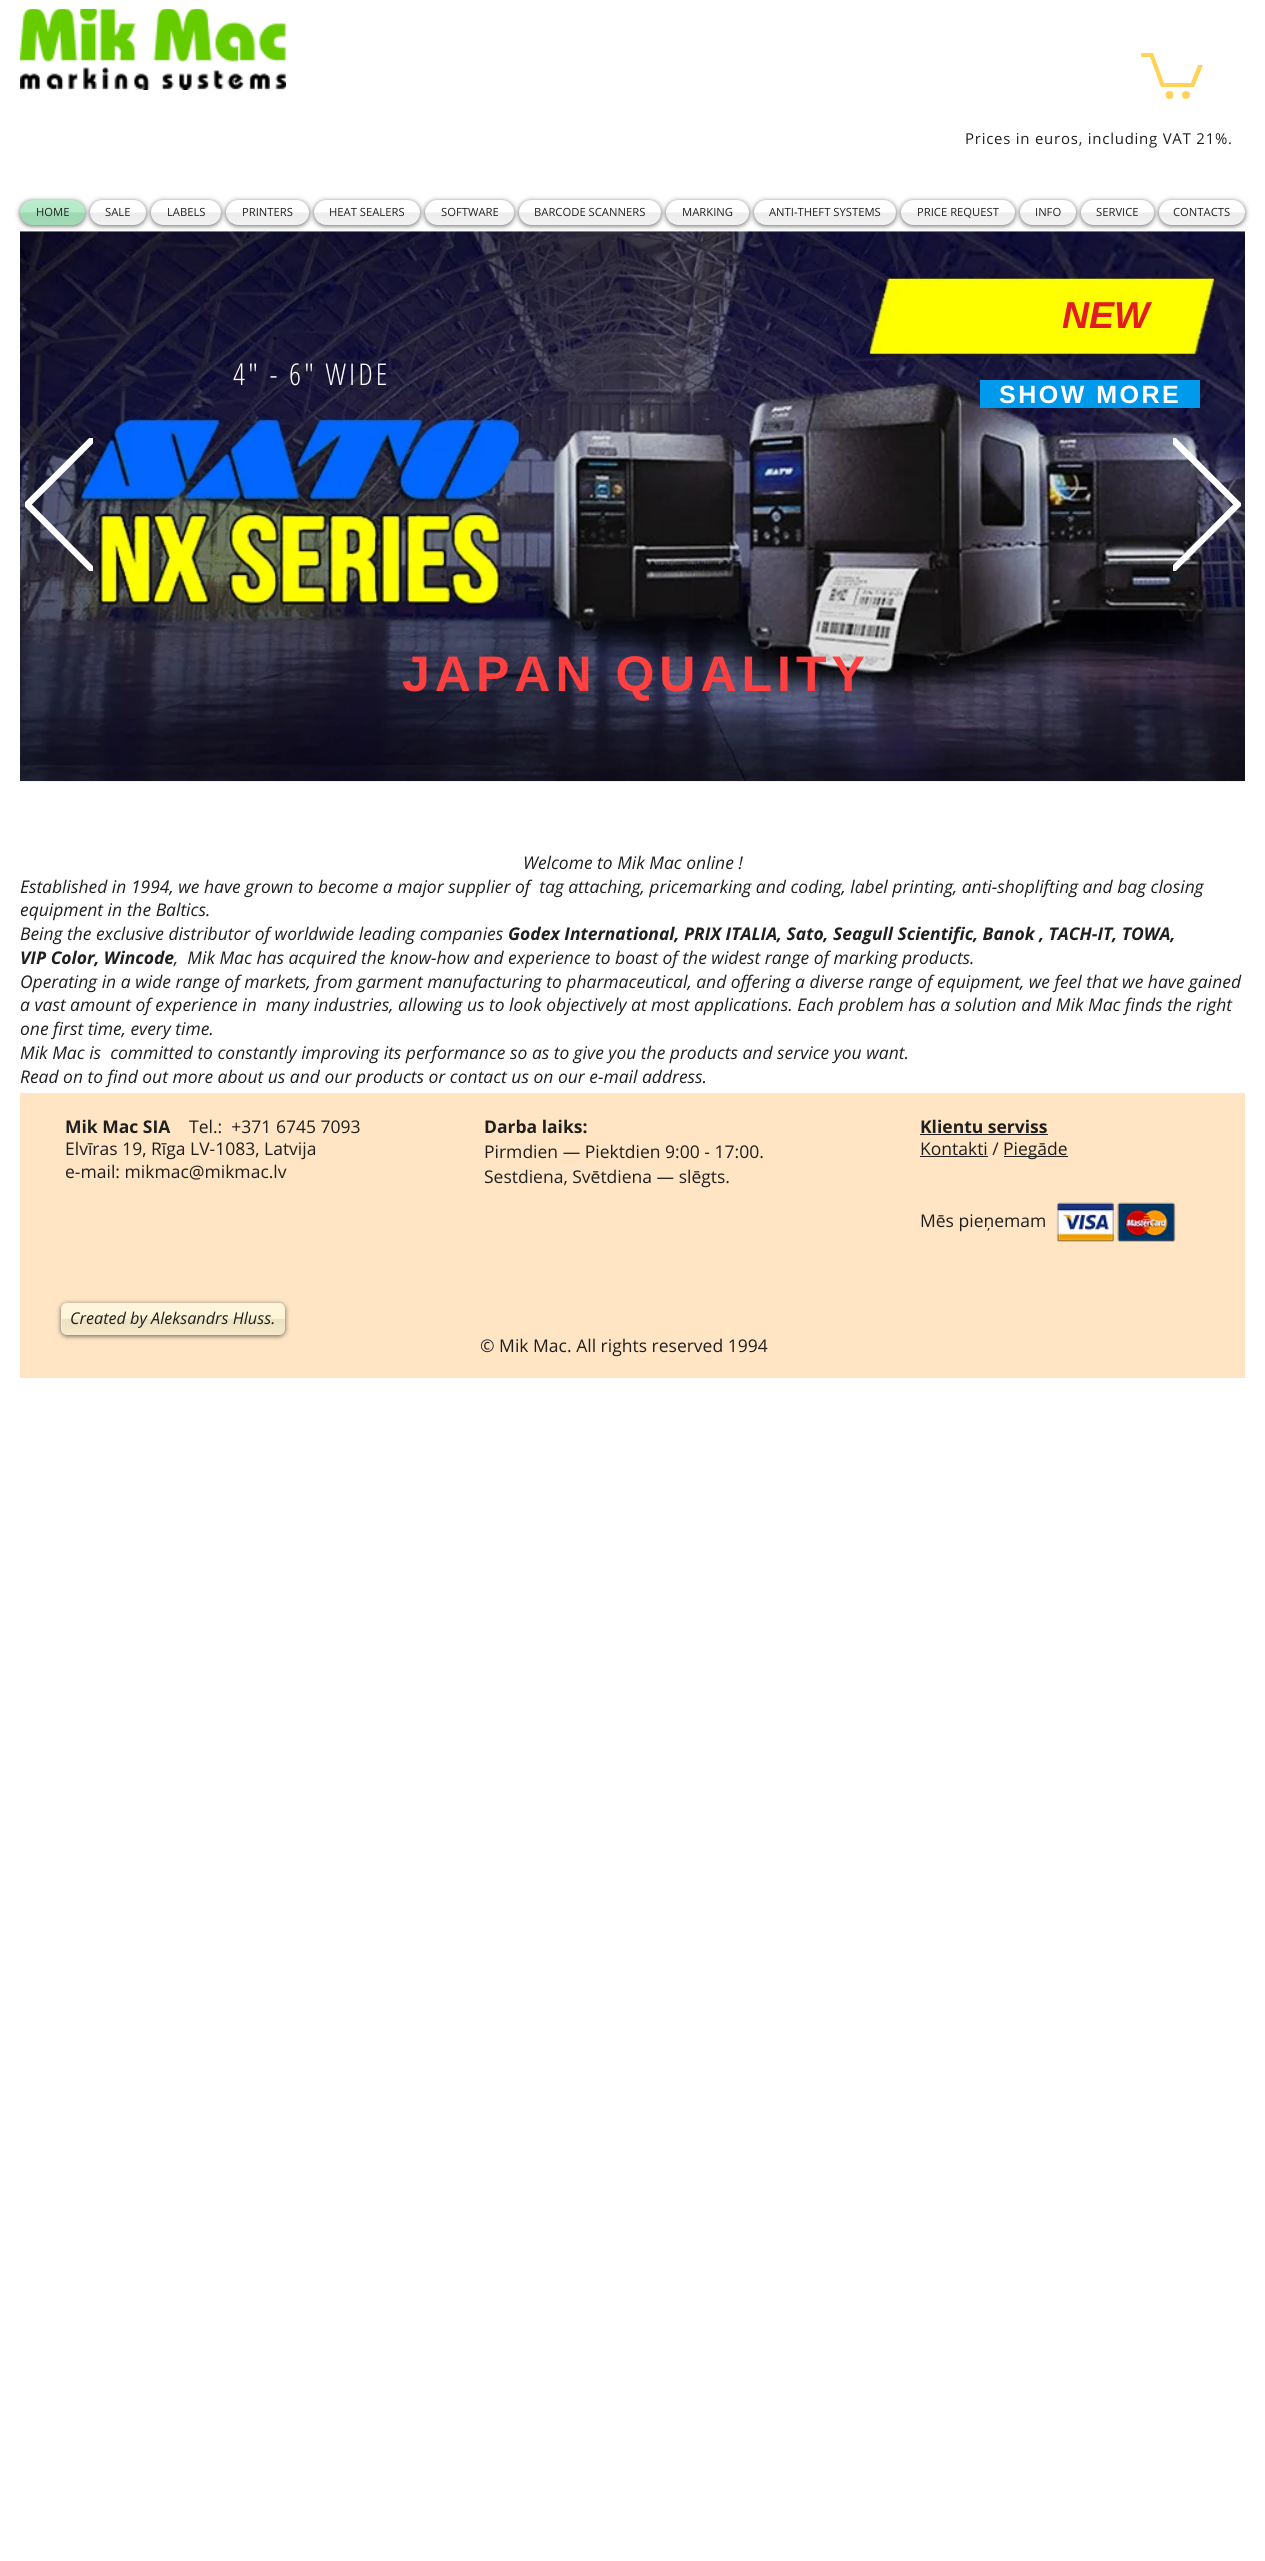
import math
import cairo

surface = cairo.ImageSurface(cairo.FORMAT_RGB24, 1265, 2561)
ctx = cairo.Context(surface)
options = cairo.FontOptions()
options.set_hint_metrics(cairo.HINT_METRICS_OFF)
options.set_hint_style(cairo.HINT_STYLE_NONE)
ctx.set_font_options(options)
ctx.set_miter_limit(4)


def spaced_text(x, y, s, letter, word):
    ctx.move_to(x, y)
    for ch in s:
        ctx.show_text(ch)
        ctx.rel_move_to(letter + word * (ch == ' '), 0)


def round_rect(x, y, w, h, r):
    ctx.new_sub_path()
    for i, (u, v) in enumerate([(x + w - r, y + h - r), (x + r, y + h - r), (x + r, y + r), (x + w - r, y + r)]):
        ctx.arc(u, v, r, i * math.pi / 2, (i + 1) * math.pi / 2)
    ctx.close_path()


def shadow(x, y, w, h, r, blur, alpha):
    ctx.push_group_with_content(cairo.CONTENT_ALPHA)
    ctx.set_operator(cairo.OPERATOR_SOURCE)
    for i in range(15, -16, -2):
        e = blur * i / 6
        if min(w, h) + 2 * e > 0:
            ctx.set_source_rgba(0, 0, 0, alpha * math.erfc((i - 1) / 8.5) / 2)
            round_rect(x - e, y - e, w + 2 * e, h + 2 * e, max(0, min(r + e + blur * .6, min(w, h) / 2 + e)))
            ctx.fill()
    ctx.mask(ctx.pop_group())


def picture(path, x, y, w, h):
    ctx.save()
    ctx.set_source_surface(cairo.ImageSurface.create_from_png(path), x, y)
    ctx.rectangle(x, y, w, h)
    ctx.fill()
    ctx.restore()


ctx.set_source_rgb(1, 1, 1)
ctx.paint()
picture("img1.png", 20, 8, 267, 82)
ctx.set_source_rgb(1, 0.824, 0.353)
ctx.new_path()
ctx.move_to(1203, 65)
ctx.line_to(1194, 87)
ctx.line_to(1161, 87)
ctx.line_to(1150, 57)
ctx.line_to(1141, 57)
ctx.line_to(1141, 53)
ctx.line_to(1153, 53)
ctx.line_to(1164, 83)
ctx.line_to(1191, 83)
ctx.line_to(1198, 65)
ctx.fill()
ctx.arc(1186, 95, 4, 0, 2 * math.pi)
ctx.fill()
ctx.arc(1169.5, 95, 4, 0, 2 * math.pi)
ctx.fill()
ctx.select_font_face("Open Sans")
ctx.set_font_size(15)
ctx.set_source_rgb(0.122, 0.122, 0.122)
spaced_text(965, 144, "Prices in euros, including VAT 21%.", 0.75, 0)
ctx.set_source_rgb(0, 0, 0)
shadow(20, 201, 65, 25, 12.5, 2.5, 0.6)
ctx.set_source_rgb(0.667, 0.906, 0.753)
round_rect(20, 200, 65, 25, 12.5)
ctx.fill()
picture("img2.png", 20, 200, 65, 25)
ctx.set_font_size(11.25)
ctx.set_source_rgb(0.122, 0.122, 0.122)
ctx.move_to(36, 216)
ctx.show_text("HOME")
ctx.set_source_rgb(0, 0, 0)
shadow(90, 201, 56, 25, 12.5, 2.5, 0.6)
ctx.set_source_rgb(1, 1, 1)
round_rect(90, 200, 56, 25, 12.5)
ctx.fill()
picture("img3.png", 90, 212, 56, 13)
ctx.set_source_rgb(0.122, 0.122, 0.122)
ctx.move_to(105, 216)
ctx.show_text("SALE")
ctx.set_source_rgb(0, 0, 0)
shadow(151, 201, 70, 25, 12.5, 2.5, 0.6)
ctx.set_source_rgb(1, 1, 1)
round_rect(151, 200, 70, 25, 12.5)
ctx.fill()
picture("img4.png", 151, 212, 70, 13)
ctx.set_source_rgb(0.122, 0.122, 0.122)
ctx.move_to(167, 216)
ctx.show_text("LABELS")
ctx.set_source_rgb(0, 0, 0)
shadow(226, 201, 83, 25, 12.5, 2.5, 0.6)
ctx.set_source_rgb(1, 1, 1)
round_rect(226, 200, 83, 25, 12.5)
ctx.fill()
picture("img5.png", 226, 212, 83, 13)
ctx.set_source_rgb(0.122, 0.122, 0.122)
ctx.move_to(242, 216)
ctx.show_text("PRINTERS")
ctx.set_source_rgb(0, 0, 0)
shadow(314, 201, 106, 25, 12.5, 2.5, 0.6)
ctx.set_source_rgb(1, 1, 1)
round_rect(314, 200, 106, 25, 12.5)
ctx.fill()
picture("img6.png", 314, 212, 106, 13)
ctx.set_source_rgb(0.122, 0.122, 0.122)
ctx.move_to(329, 216)
ctx.show_text("HEAT SEALERS")
ctx.set_source_rgb(0, 0, 0)
shadow(425, 201, 89, 25, 12.5, 2.5, 0.6)
ctx.set_source_rgb(1, 1, 1)
round_rect(425, 200, 89, 25, 12.5)
ctx.fill()
picture("img7.png", 425, 212, 89, 13)
ctx.set_source_rgb(0.122, 0.122, 0.122)
ctx.move_to(441, 216)
ctx.show_text("SOFTWARE")
ctx.set_source_rgb(0, 0, 0)
shadow(519, 201, 142, 25, 12.5, 2.5, 0.6)
ctx.set_source_rgb(1, 1, 1)
round_rect(519, 200, 142, 25, 12.5)
ctx.fill()
picture("img8.png", 519, 212, 142, 13)
ctx.set_source_rgb(0.122, 0.122, 0.122)
ctx.move_to(534, 216)
ctx.show_text("BARCODE SCANNERS")
ctx.set_source_rgb(0, 0, 0)
shadow(666, 201, 83, 25, 12.5, 2.5, 0.6)
ctx.set_source_rgb(1, 1, 1)
round_rect(666, 200, 83, 25, 12.5)
ctx.fill()
picture("img5.png", 666, 212, 83, 13)
ctx.set_source_rgb(0.122, 0.122, 0.122)
ctx.move_to(682, 216)
ctx.show_text("MARKING")
ctx.set_source_rgb(0, 0, 0)
shadow(754, 201, 142, 25, 12.5, 2.5, 0.6)
ctx.set_source_rgb(1, 1, 1)
round_rect(754, 200, 142, 25, 12.5)
ctx.fill()
picture("img9.png", 754, 212, 142, 13)
ctx.set_source_rgb(0.122, 0.122, 0.122)
ctx.move_to(769, 216)
ctx.show_text("ANTI-THEFT SYSTEMS")
ctx.set_source_rgb(0, 0, 0)
shadow(901, 201, 114, 25, 12.5, 2.5, 0.6)
ctx.set_source_rgb(1, 1, 1)
round_rect(901, 200, 114, 25, 12.5)
ctx.fill()
picture("img10.png", 901, 212, 114, 13)
ctx.set_source_rgb(0.122, 0.122, 0.122)
ctx.move_to(917, 216)
ctx.show_text("PRICE REQUEST")
ctx.set_source_rgb(0, 0, 0)
shadow(1020, 201, 56, 25, 12.5, 2.5, 0.6)
ctx.set_source_rgb(1, 1, 1)
round_rect(1020, 200, 56, 25, 12.5)
ctx.fill()
picture("img3.png", 1020, 212, 56, 13)
ctx.set_source_rgb(0.122, 0.122, 0.122)
ctx.move_to(1035, 216)
ctx.show_text("INFO")
ctx.set_source_rgb(0, 0, 0)
shadow(1081, 201, 73, 25, 12.5, 2.5, 0.6)
ctx.set_source_rgb(1, 1, 1)
round_rect(1081, 200, 73, 25, 12.5)
ctx.fill()
picture("img11.png", 1081, 212, 73, 13)
ctx.set_source_rgb(0.122, 0.122, 0.122)
ctx.move_to(1096, 216)
ctx.show_text("SERVICE")
ctx.set_source_rgb(0, 0, 0)
shadow(1159, 201, 86, 25, 12.5, 2.5, 0.6)
ctx.set_source_rgb(1, 1, 1)
round_rect(1159, 200, 86, 25, 12.5)
ctx.fill()
picture("img12.png", 1159, 212, 86, 13)
ctx.set_source_rgb(0.122, 0.122, 0.122)
ctx.move_to(1173, 216)
ctx.show_text("CONTACTS")
picture("img13.png", 20, 231, 1225, 551)
ctx.save()
ctx.rectangle(25, 438, 68, 133)
ctx.clip()
ctx.new_path()
ctx.move_to(91.5, 571)
ctx.line_to(25, 504.5)
ctx.line_to(91.5, 438)
ctx.line_to(93.5, 440.5)
ctx.line_to(29.5, 504.5)
ctx.line_to(93.5, 569)
ctx.close_path()
ctx.set_source_rgb(1, 1, 1)
ctx.set_line_width(3.3)
ctx.stroke()
ctx.restore()
ctx.select_font_face("Liberation Sans", cairo.FONT_SLANT_ITALIC, cairo.FONT_WEIGHT_BOLD)
ctx.set_font_size(37.5)
ctx.set_source_rgb(0.886, 0.11, 0.129)
ctx.move_to(1062, 328)
ctx.show_text("NEW")
ctx.select_font_face("Open Sans Condensed Light")
ctx.set_font_size(30)
ctx.set_source_rgb(1, 1, 1)
spaced_text(233, 385, "4\" - 6\" WIDE", 3, 0)
ctx.set_source_rgb(0, 0.604, 0.922)
ctx.rectangle(980, 380, 220, 28)
ctx.fill()
ctx.select_font_face("Liberation Sans", cairo.FONT_SLANT_NORMAL, cairo.FONT_WEIGHT_BOLD)
ctx.set_font_size(25)
ctx.set_source_rgb(1, 1, 1)
spaced_text(999, 403, "SHOW MORE", 2.5, 0)
ctx.set_font_size(50)
ctx.set_source_rgb(1, 0.251, 0.251)
spaced_text(402, 691, "JAPAN QUALITY", 5, 0)
ctx.save()
ctx.rectangle(1173, 438, 68, 133)
ctx.clip()
ctx.new_path()
ctx.move_to(1173.5, 571)
ctx.line_to(1240, 504.5)
ctx.line_to(1173.5, 438)
ctx.line_to(1171.5, 440.5)
ctx.line_to(1235.5, 504.5)
ctx.line_to(1171.5, 569)
ctx.close_path()
ctx.set_source_rgb(1, 1, 1)
ctx.set_line_width(3.3)
ctx.stroke()
ctx.restore()
ctx.select_font_face("Open Sans", cairo.FONT_SLANT_ITALIC)
ctx.set_font_size(17.5)
ctx.set_source_rgb(0.122, 0.122, 0.122)
ctx.move_to(523, 869)
ctx.show_text("Welcome to Mik Mac online !")
ctx.move_to(20, 893)
ctx.show_text("Established in 1994, we have grown to become a major supplier of  tag attaching, pricemarking and coding, label printing, anti-shoplifting and bag closing")
ctx.move_to(20, 916)
ctx.show_text("equipment in the Baltics.")
ctx.move_to(20, 940)
ctx.show_text("Being the exclusive distributor of worldwide leading companies")
ctx.select_font_face("Open Sans", cairo.FONT_SLANT_ITALIC, cairo.FONT_WEIGHT_BOLD)
ctx.move_to(508, 940)
ctx.show_text("Godex International, PRIX ITALIA, Sato, Seagull Scientific, Banok , TACH-IT, TOWA,")
ctx.move_to(20, 964)
ctx.show_text("VIP Color, Wincode")
ctx.select_font_face("Open Sans", cairo.FONT_SLANT_ITALIC)
ctx.move_to(174, 964)
ctx.show_text(",  Mik Mac has acquired the know-how and experience to boast of the widest range of marking products.")
ctx.move_to(20, 988)
ctx.show_text("Operating in a wide range of markets, from garment manufacturing to pharmaceutical, and offering a diverse range of equipment, we feel that we have gained")
ctx.move_to(20, 1011)
ctx.show_text("a vast amount of experience in  many industries, allowing us to look objectively at most applications. Each problem has a solution and Mik Mac finds the right")
ctx.move_to(20, 1035)
ctx.show_text("one first time, every time.")
ctx.move_to(20, 1059)
ctx.show_text("Mik Mac is  committed to constantly improving its performance so as to give you the products and service you want.")
ctx.move_to(20, 1083)
ctx.show_text("Read on to find out more about us and our products or contact us on our e-mail address.")
ctx.set_source_rgb(1, 0.898, 0.769)
ctx.rectangle(20, 1093, 1225, 285)
ctx.fill()
ctx.select_font_face("Open Sans", cairo.FONT_SLANT_NORMAL, cairo.FONT_WEIGHT_BOLD)
ctx.set_source_rgb(0.122, 0.122, 0.122)
ctx.move_to(65, 1133)
ctx.show_text("Mik Mac SIA")
ctx.select_font_face("Open Sans")
ctx.move_to(189, 1133)
ctx.show_text("Tel.:  +371 6745 7093")
ctx.move_to(65, 1155)
ctx.show_text("Elvīras 19, Rīga LV-1083, Latvija")
ctx.move_to(65, 1178)
ctx.show_text("e-mail: mikmac@mikmac.lv")
ctx.select_font_face("Open Sans", cairo.FONT_SLANT_NORMAL, cairo.FONT_WEIGHT_BOLD)
ctx.move_to(484, 1133)
ctx.show_text("Darba laiks:")
ctx.select_font_face("Open Sans")
ctx.move_to(484, 1158)
ctx.show_text("Pirmdien — Piektdien 9:00 - 17:00.")
ctx.move_to(484, 1183)
ctx.show_text("Sestdiena, Svētdiena — slēgts.")
ctx.select_font_face("Open Sans", cairo.FONT_SLANT_NORMAL, cairo.FONT_WEIGHT_BOLD)
ctx.move_to(920, 1133)
ctx.show_text("Klientu serviss")
ctx.rectangle(920, 1134, 128, 1)
ctx.fill()
ctx.select_font_face("Open Sans")
ctx.move_to(920, 1155)
ctx.show_text("Kontakti /")
ctx.rectangle(920, 1156, 68, 1)
ctx.fill()
ctx.rectangle(1004, 1156, 64, 1)
ctx.fill()
ctx.move_to(1003, 1155)
ctx.show_text("Piegāde")
ctx.move_to(920, 1227)
ctx.show_text("Mēs pieņemam")
picture("img14.png", 1056, 1202, 120, 40)
ctx.set_source_rgb(0, 0, 0)
shadow(61, 1304, 224, 32, 6, 2.5, 0.6)
ctx.set_source_rgb(1, 0.953, 0.827)
round_rect(61, 1303, 224, 32, 6)
ctx.fill()
picture("img15.png", 61, 1302, 224, 33)
ctx.select_font_face("Open Sans", cairo.FONT_SLANT_ITALIC)
ctx.set_font_size(16.25)
ctx.set_source_rgb(0.122, 0.122, 0.122)
ctx.move_to(70, 1324)
ctx.show_text("Created by Aleksandrs Hluss.")
ctx.select_font_face("Open Sans")
ctx.set_font_size(17.5)
ctx.move_to(480, 1352)
ctx.show_text("© Mik Mac. All rights reserved 1994")
surface.write_to_png("page.png")
